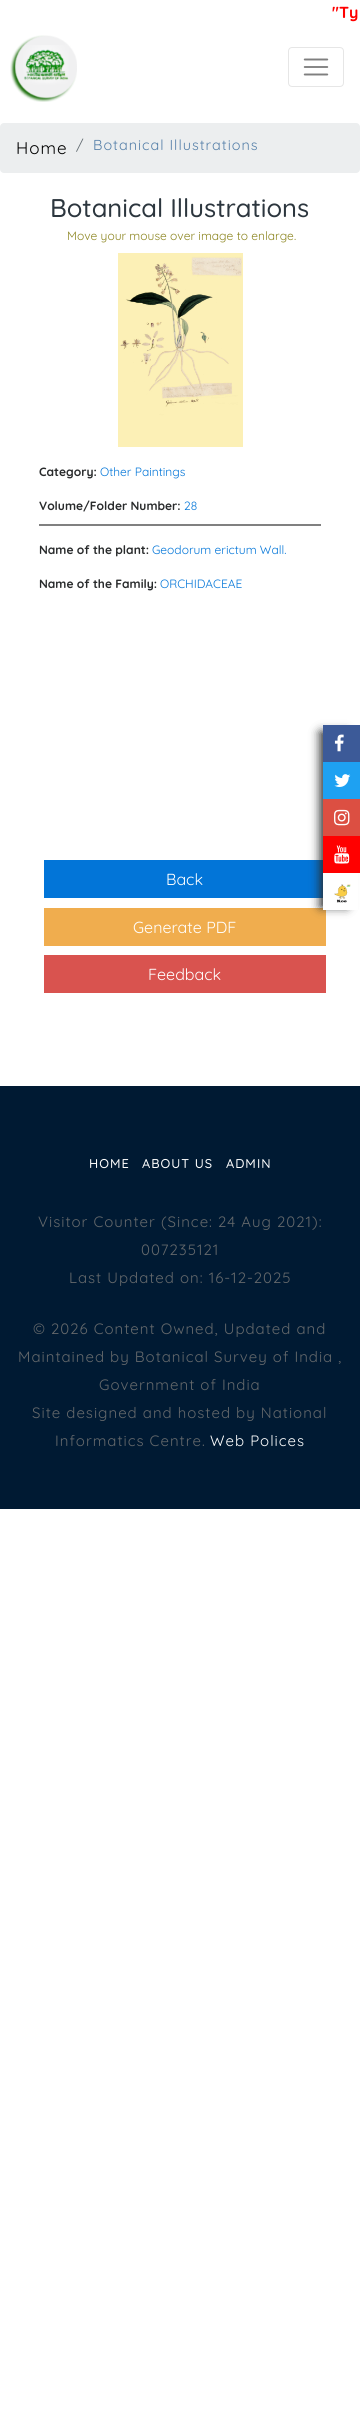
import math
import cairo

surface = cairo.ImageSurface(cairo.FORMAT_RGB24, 360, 2418)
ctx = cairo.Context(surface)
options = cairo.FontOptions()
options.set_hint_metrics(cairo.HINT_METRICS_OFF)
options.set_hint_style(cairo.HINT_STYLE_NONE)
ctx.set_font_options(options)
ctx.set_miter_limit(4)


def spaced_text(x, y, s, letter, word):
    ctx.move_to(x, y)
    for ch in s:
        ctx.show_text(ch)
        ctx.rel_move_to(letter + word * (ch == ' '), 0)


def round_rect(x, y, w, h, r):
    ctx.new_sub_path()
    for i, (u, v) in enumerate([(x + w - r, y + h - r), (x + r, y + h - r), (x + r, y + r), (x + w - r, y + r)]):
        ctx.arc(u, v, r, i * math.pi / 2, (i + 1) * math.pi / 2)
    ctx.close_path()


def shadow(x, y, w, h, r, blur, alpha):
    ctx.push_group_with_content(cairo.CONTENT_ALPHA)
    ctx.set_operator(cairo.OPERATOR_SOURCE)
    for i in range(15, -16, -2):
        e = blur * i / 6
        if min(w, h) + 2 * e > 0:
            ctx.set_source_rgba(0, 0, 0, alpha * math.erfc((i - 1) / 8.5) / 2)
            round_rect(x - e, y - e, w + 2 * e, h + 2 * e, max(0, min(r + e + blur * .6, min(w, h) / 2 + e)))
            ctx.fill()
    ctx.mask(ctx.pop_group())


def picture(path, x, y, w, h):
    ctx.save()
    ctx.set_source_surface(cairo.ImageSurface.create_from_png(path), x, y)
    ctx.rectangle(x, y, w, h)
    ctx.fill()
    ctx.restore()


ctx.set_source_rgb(1, 1, 1)
ctx.paint()
ctx.select_font_face("Quicksand", cairo.FONT_SLANT_NORMAL, cairo.FONT_WEIGHT_BOLD)
ctx.set_font_size(16)
ctx.set_source_rgb(1, 0, 0)
ctx.move_to(332, 18)
ctx.show_text("\"Ty")
picture("img1.png", 10, 35, 67, 67)
round_rect(288.5, 47.5, 55, 39, 3.5)
ctx.set_source_rgb(0.902, 0.902, 0.902)
ctx.set_line_width(1)
ctx.stroke()
picture("img2.png", 303, 58, 26, 18)
ctx.set_source_rgb(0.925, 0.933, 0.937)
round_rect(0, 123, 360, 50, 4)
ctx.fill()
ctx.select_font_face("Quicksand")
ctx.set_font_size(17)
ctx.set_source_rgb(0, 0, 0)
spaced_text(16, 154, "Home", 1, 0)
ctx.set_font_size(14.4)
ctx.set_source_rgb(0.388, 0.424, 0.447)
spaced_text(76, 150, "/", 1, 0)
ctx.set_source_rgb(0.337, 0.502, 0.663)
spaced_text(93, 150, "Botanical Illustrations", 1, 0)
ctx.select_font_face("Quicksand Medium")
ctx.set_font_size(25.6)
ctx.set_source_rgb(0.173, 0.212, 0.243)
ctx.move_to(50, 217)
ctx.show_text("Botanical Illustrations")
ctx.select_font_face("Quicksand")
ctx.set_font_size(12)
ctx.set_source_rgb(0.549, 0.522, 0.125)
ctx.move_to(67, 240)
ctx.show_text("Move your mouse over image to enlarge.")
picture("img3.png", 118, 253, 125, 194)
ctx.select_font_face("Quicksand", cairo.FONT_SLANT_NORMAL, cairo.FONT_WEIGHT_BOLD)
ctx.set_source_rgb(0.161, 0.169, 0.173)
ctx.move_to(39, 476)
ctx.show_text("Category:")
ctx.select_font_face("Quicksand")
ctx.set_source_rgb(0.008, 0.459, 0.847)
ctx.move_to(100, 476)
ctx.show_text("Other Paintings")
ctx.select_font_face("Quicksand", cairo.FONT_SLANT_NORMAL, cairo.FONT_WEIGHT_BOLD)
ctx.set_source_rgb(0.161, 0.169, 0.173)
ctx.move_to(39, 510)
ctx.show_text("Volume/Folder Number:")
ctx.select_font_face("Quicksand")
ctx.set_source_rgb(0.008, 0.459, 0.847)
ctx.move_to(184, 510)
ctx.show_text("28")
ctx.set_source_rgb(0.502, 0.502, 0.502)
ctx.rectangle(39, 524, 282, 2)
ctx.fill()
ctx.select_font_face("Quicksand", cairo.FONT_SLANT_NORMAL, cairo.FONT_WEIGHT_BOLD)
ctx.set_source_rgb(0.161, 0.169, 0.173)
ctx.move_to(39, 554)
ctx.show_text("Name of the plant:")
ctx.select_font_face("Quicksand")
ctx.set_source_rgb(0.008, 0.459, 0.847)
ctx.move_to(152, 554)
ctx.show_text("Geodorum erictum Wall.")
ctx.select_font_face("Quicksand", cairo.FONT_SLANT_NORMAL, cairo.FONT_WEIGHT_BOLD)
ctx.set_source_rgb(0.161, 0.169, 0.173)
ctx.move_to(39, 588)
ctx.show_text("Name of the Family:")
ctx.select_font_face("Quicksand")
ctx.set_source_rgb(0.008, 0.459, 0.847)
ctx.move_to(160, 588)
ctx.show_text("ORCHIDACEAE")
ctx.rectangle(44, 860, 279, 38)
ctx.fill()
ctx.set_font_size(16)
ctx.set_source_rgb(1, 1, 1)
ctx.move_to(166, 885)
ctx.show_text("Back")
ctx.set_source_rgb(0.941, 0.678, 0.306)
ctx.rectangle(44, 908, 282, 38)
ctx.fill()
ctx.set_source_rgb(1, 1, 1)
ctx.move_to(133, 933)
ctx.show_text("Generate PDF")
ctx.set_source_rgb(0.851, 0.325, 0.31)
ctx.rectangle(44, 955, 282, 38)
ctx.fill()
ctx.set_source_rgb(1, 1, 1)
ctx.move_to(148, 980)
ctx.show_text("Feedback")
ctx.set_source_rgb(0.161, 0.169, 0.173)
shadow(320, 732, 27, 175, 0, 5, 1)
ctx.set_source_rgb(0.235, 0.353, 0.596)
ctx.rectangle(323, 725, 37, 37)
ctx.fill()
picture("img4.png", 334, 734, 10, 18)
ctx.set_source_rgb(0.118, 0.631, 0.949)
ctx.rectangle(323, 762, 37, 37)
ctx.fill()
picture("img5.png", 334, 774, 17, 13)
ctx.set_source_rgb(0.863, 0.31, 0.259)
ctx.rectangle(323, 799, 37, 37)
ctx.fill()
picture("img6.png", 334, 809, 16, 17)
ctx.set_source_rgb(1, 0, 0)
ctx.rectangle(323, 836, 37, 37)
ctx.fill()
picture("img7.png", 334, 845, 16, 19)
ctx.set_source_rgb(1, 1, 1)
ctx.rectangle(323, 873, 35, 37)
ctx.fill()
picture("img8.png", 334, 884, 17, 19)
ctx.set_source_rgb(0, 0.102, 0.2)
ctx.rectangle(0, 1086, 360, 423)
ctx.fill()
ctx.select_font_face("Quicksand Medium")
ctx.set_font_size(12.75)
ctx.set_source_rgb(1, 1, 1)
spaced_text(89, 1168, "HOME", 1, 0)
spaced_text(142, 1168, "ABOUT US", 1, 0)
spaced_text(226, 1168, "ADMIN", 1, 0)
ctx.select_font_face("Quicksand")
ctx.set_font_size(15)
ctx.set_source_rgb(0.392, 0.408, 0.42)
spaced_text(38, 1227, "Visitor Counter (Since: 24 Aug 2021):", 1, 0)
spaced_text(141, 1255, "007235121", 1, 0)
spaced_text(69, 1283, "Last Updated on: 16-12-2025", 1, 0)
spaced_text(33, 1334, "© 2026 Content Owned, Updated and", 1, 0)
spaced_text(18, 1362, "Maintained by Botanical Survey of India ,", 1, 0)
spaced_text(99, 1390, "Government of India", 1, 0)
spaced_text(32, 1418, "Site designed and hosted by National", 1, 0)
spaced_text(55, 1446, "Informatics Centre.", 1, 0)
ctx.set_source_rgb(1, 1, 1)
spaced_text(210, 1446, "Web Polices", 1, 0)
surface.write_to_png("page.png")
